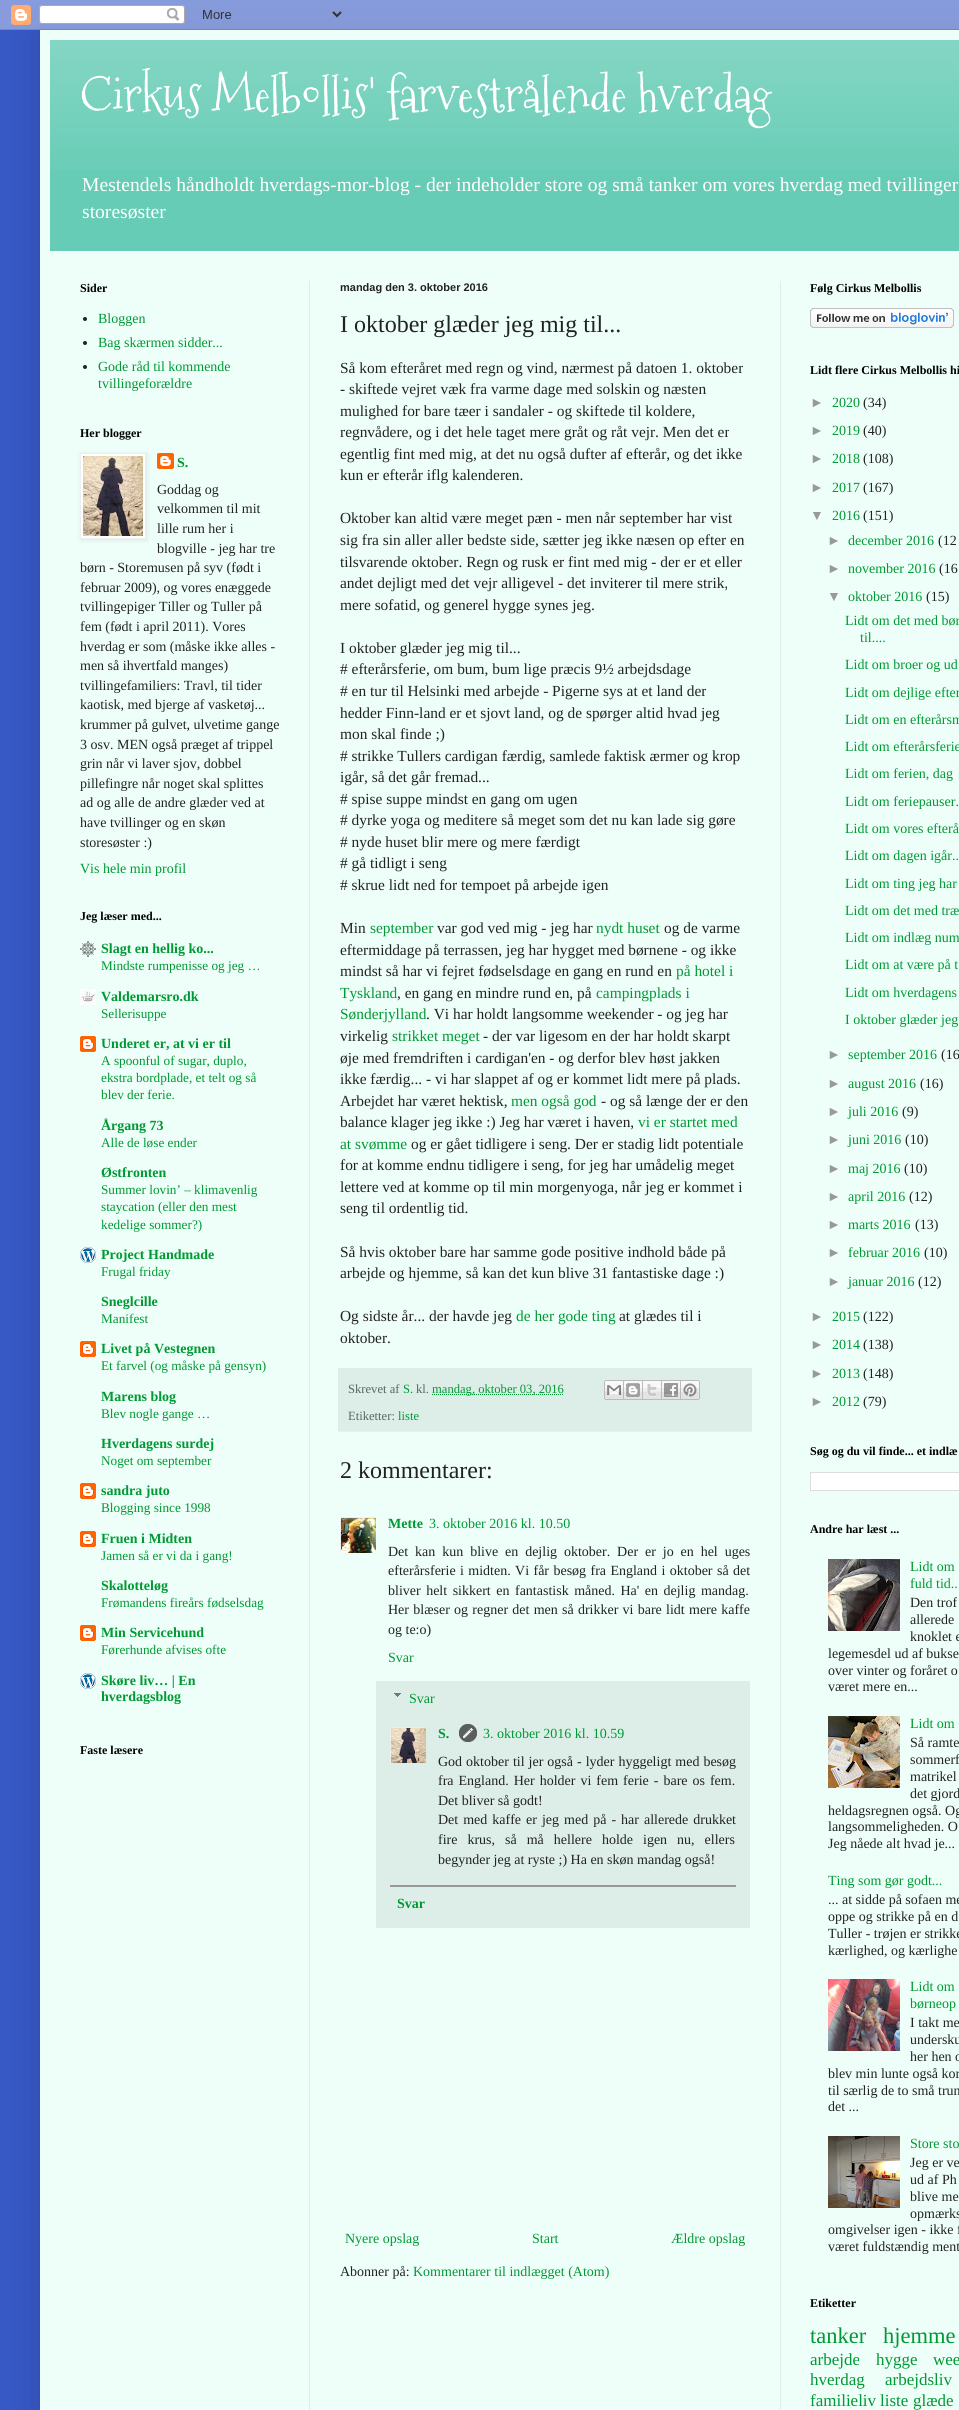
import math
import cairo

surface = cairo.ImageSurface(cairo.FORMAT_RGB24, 959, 2410)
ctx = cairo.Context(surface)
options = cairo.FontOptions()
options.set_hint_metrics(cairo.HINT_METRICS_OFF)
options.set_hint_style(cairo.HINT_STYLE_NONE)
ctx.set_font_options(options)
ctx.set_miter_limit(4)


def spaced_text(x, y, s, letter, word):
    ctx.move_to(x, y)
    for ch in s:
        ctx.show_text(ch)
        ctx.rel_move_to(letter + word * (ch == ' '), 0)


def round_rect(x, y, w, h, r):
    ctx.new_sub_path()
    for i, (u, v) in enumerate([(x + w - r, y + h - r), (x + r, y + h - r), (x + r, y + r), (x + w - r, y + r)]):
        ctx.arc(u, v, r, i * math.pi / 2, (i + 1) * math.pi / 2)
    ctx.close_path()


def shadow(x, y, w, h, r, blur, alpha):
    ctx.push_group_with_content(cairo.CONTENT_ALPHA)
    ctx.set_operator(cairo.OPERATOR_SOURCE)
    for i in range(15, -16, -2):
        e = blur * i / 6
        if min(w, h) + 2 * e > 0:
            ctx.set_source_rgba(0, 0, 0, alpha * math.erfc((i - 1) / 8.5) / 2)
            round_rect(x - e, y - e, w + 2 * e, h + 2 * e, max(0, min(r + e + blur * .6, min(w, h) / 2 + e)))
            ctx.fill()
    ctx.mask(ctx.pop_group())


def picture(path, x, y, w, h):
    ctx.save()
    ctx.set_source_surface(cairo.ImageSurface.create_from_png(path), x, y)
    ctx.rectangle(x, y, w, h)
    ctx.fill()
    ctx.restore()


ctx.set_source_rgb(0.216, 0.349, 0.78)
ctx.paint()
ctx.set_source_rgb(0, 0, 0)
shadow(40, 30, 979, 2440, 0, 20, 0.15)
picture("img1.png", 0, 0, 959, 30)
ctx.set_source_rgb(0.933, 1, 0.976)
ctx.rectangle(40, 30, 919, 2380)
ctx.fill()
ctx.set_source_rgb(0.4, 0.8, 0.71)
ctx.rectangle(50, 40, 909, 211)
ctx.fill()
picture("img2.png", 50, 40, 909, 130)
ctx.select_font_face("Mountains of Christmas")
ctx.set_font_size(48)
ctx.set_source_rgb(1, 1, 1)
ctx.move_to(80, 112)
ctx.show_text("Cirkus Melbollis' farvestrålende hverdag")
ctx.select_font_face("Liberation Serif")
ctx.set_font_size(19.6)
ctx.move_to(82, 191)
ctx.show_text("Mestendels håndholdt hverdags-mor-blog - der indeholder store og små tanker om vores hverdag med tvillinger")
ctx.move_to(82, 218)
ctx.show_text("storesøster")
ctx.set_source_rgb(0.867, 0.933, 0.898)
ctx.rectangle(309, 281, 1, 2129)
ctx.fill()
ctx.rectangle(780, 281, 1, 2129)
ctx.fill()
ctx.select_font_face("Liberation Serif", cairo.FONT_SLANT_NORMAL, cairo.FONT_WEIGHT_BOLD)
ctx.set_font_size(12)
ctx.set_source_rgb(0, 0, 0)
ctx.move_to(80, 292)
ctx.show_text("Sider")
ctx.set_source_rgb(0.133, 0.133, 0.133)
ctx.new_path()
ctx.arc(85, 319, 2, 0, 2 * math.pi)
ctx.fill()
ctx.select_font_face("Liberation Serif")
ctx.set_font_size(14)
ctx.set_source_rgb(0, 0.6, 0.2)
ctx.move_to(98, 323)
ctx.show_text("Bloggen")
ctx.set_source_rgb(0.133, 0.133, 0.133)
ctx.new_path()
ctx.arc(85, 343, 2, 0, 2 * math.pi)
ctx.fill()
ctx.set_source_rgb(0, 0.6, 0.2)
ctx.move_to(98, 347)
ctx.show_text("Bag skærmen sidder...")
ctx.set_source_rgb(0.133, 0.133, 0.133)
ctx.new_path()
ctx.arc(85, 367, 2, 0, 2 * math.pi)
ctx.fill()
ctx.set_source_rgb(0, 0.6, 0.2)
ctx.move_to(98, 371)
ctx.show_text("Gode råd til kommende")
ctx.move_to(98, 388)
ctx.show_text("tvillingeforældre")
ctx.select_font_face("Liberation Serif", cairo.FONT_SLANT_NORMAL, cairo.FONT_WEIGHT_BOLD)
ctx.set_font_size(12)
ctx.set_source_rgb(0, 0, 0)
ctx.move_to(80, 437)
ctx.show_text("Her blogger")
ctx.set_source_rgb(0, 0, 0)
shadow(81, 454, 66, 86, 0, 2.5, 0.1)
ctx.set_source_rgb(1, 1, 1)
ctx.rectangle(80.5, 453.5, 65, 85)
ctx.fill_preserve()
ctx.set_source_rgb(0.933, 0.933, 0.933)
ctx.set_line_width(1)
ctx.stroke()
picture("img3.png", 83, 456, 60, 80)
picture("img4.png", 157, 453, 17, 16)
ctx.set_font_size(14)
ctx.set_source_rgb(0, 0.6, 0.2)
ctx.move_to(177, 467)
ctx.show_text("S.")
ctx.select_font_face("Liberation Serif")
ctx.set_source_rgb(0.133, 0.133, 0.133)
ctx.move_to(157, 494)
ctx.show_text("Goddag og")
ctx.move_to(157, 513)
ctx.show_text("velkommen til mit")
ctx.move_to(157, 533)
ctx.show_text("lille rum her i")
ctx.move_to(157, 553)
ctx.show_text("blogville - jeg har tre")
ctx.move_to(80, 572)
ctx.show_text("børn - Storemusen på syv (født i")
ctx.move_to(80, 592)
ctx.show_text("februar 2009), og vores enæggede")
ctx.move_to(80, 611)
ctx.show_text("tvillingepiger Tiller og Tuller på")
ctx.move_to(80, 631)
ctx.show_text("fem (født i april 2011). Vores")
ctx.move_to(80, 651)
ctx.show_text("hverdag er som (måske ikke alles -")
ctx.move_to(80, 670)
ctx.show_text("men så ihvertfald manges)")
ctx.move_to(80, 690)
ctx.show_text("tvillingefamiliers: Travl, til tider")
ctx.move_to(80, 709)
ctx.show_text("kaotisk, med bjerge af vasketøj...")
ctx.move_to(80, 729)
ctx.show_text("krummer på gulvet, ulvetime gange")
ctx.move_to(80, 749)
ctx.show_text("3 osv. MEN også præget af trippel")
ctx.move_to(80, 768)
ctx.show_text("grin når vi laver sjov, dobbel")
ctx.move_to(80, 788)
ctx.show_text("pillefingre når noget skal splittes")
ctx.move_to(80, 807)
ctx.show_text("ad og alle de andre glæder ved at")
ctx.move_to(80, 827)
ctx.show_text("have tvillinger og en skøn")
ctx.move_to(80, 847)
ctx.show_text("storesøster :)")
ctx.set_source_rgb(0, 0.6, 0.2)
ctx.move_to(80, 873)
ctx.show_text("Vis hele min profil")
ctx.select_font_face("Liberation Serif", cairo.FONT_SLANT_NORMAL, cairo.FONT_WEIGHT_BOLD)
ctx.set_font_size(12)
ctx.set_source_rgb(0, 0, 0)
ctx.move_to(80, 920)
ctx.show_text("Jeg læser med...")
picture("img5.png", 80, 941, 16, 16)
ctx.set_font_size(14)
ctx.set_source_rgb(0, 0.6, 0.2)
ctx.move_to(101, 953)
ctx.show_text("Slagt en hellig ko...")
ctx.select_font_face("Liberation Serif")
ctx.set_font_size(13.25)
ctx.move_to(101, 970)
ctx.show_text("Mindste rumpenisse og jeg …")
picture("img6.png", 80, 989, 16, 16)
ctx.select_font_face("Liberation Serif", cairo.FONT_SLANT_NORMAL, cairo.FONT_WEIGHT_BOLD)
ctx.set_font_size(14)
ctx.move_to(101, 1001)
ctx.show_text("Valdemarsro.dk")
ctx.select_font_face("Liberation Serif")
ctx.set_font_size(13.25)
ctx.move_to(101, 1018)
ctx.show_text("Sellerisuppe")
picture("img7.png", 80, 1036, 16, 16)
ctx.select_font_face("Liberation Serif", cairo.FONT_SLANT_NORMAL, cairo.FONT_WEIGHT_BOLD)
ctx.set_font_size(14)
ctx.move_to(101, 1048)
ctx.show_text("Underet er, at vi er til")
ctx.select_font_face("Liberation Serif")
ctx.set_font_size(13.25)
ctx.move_to(101, 1065)
ctx.show_text("A spoonful of sugar, duplo,")
ctx.move_to(101, 1082)
ctx.show_text("ekstra bordplade, et telt og så")
ctx.move_to(101, 1099)
ctx.show_text("blev der ferie.")
ctx.select_font_face("Liberation Serif", cairo.FONT_SLANT_NORMAL, cairo.FONT_WEIGHT_BOLD)
ctx.set_font_size(14)
ctx.move_to(101, 1130)
ctx.show_text("Årgang 73")
ctx.select_font_face("Liberation Serif")
ctx.set_font_size(13.25)
ctx.move_to(101, 1147)
ctx.show_text("Alle de løse ender")
ctx.select_font_face("Liberation Serif", cairo.FONT_SLANT_NORMAL, cairo.FONT_WEIGHT_BOLD)
ctx.set_font_size(14)
ctx.move_to(101, 1177)
ctx.show_text("Østfronten")
ctx.select_font_face("Liberation Serif")
ctx.set_font_size(13.25)
ctx.move_to(101, 1194)
ctx.show_text("Summer lovin’ – klimavenlig")
ctx.move_to(101, 1211)
ctx.show_text("staycation (eller den mest")
ctx.move_to(101, 1229)
ctx.show_text("kedelige sommer?)")
picture("img8.png", 80, 1247, 16, 16)
ctx.select_font_face("Liberation Serif", cairo.FONT_SLANT_NORMAL, cairo.FONT_WEIGHT_BOLD)
ctx.set_font_size(14)
ctx.move_to(101, 1259)
ctx.show_text("Project Handmade")
ctx.select_font_face("Liberation Serif")
ctx.set_font_size(13.25)
ctx.move_to(101, 1276)
ctx.show_text("Frugal friday")
ctx.select_font_face("Liberation Serif", cairo.FONT_SLANT_NORMAL, cairo.FONT_WEIGHT_BOLD)
ctx.set_font_size(14)
ctx.move_to(101, 1306)
ctx.show_text("Sneglcille")
ctx.select_font_face("Liberation Serif")
ctx.set_font_size(13.25)
ctx.move_to(101, 1323)
ctx.show_text("Manifest")
picture("img7.png", 80, 1341, 16, 16)
ctx.select_font_face("Liberation Serif", cairo.FONT_SLANT_NORMAL, cairo.FONT_WEIGHT_BOLD)
ctx.set_font_size(14)
ctx.move_to(101, 1353)
ctx.show_text("Livet på Vestegnen")
ctx.select_font_face("Liberation Serif")
ctx.set_font_size(13.25)
ctx.move_to(101, 1370)
ctx.show_text("Et farvel (og måske på gensyn)")
ctx.select_font_face("Liberation Serif", cairo.FONT_SLANT_NORMAL, cairo.FONT_WEIGHT_BOLD)
ctx.set_font_size(14)
ctx.move_to(101, 1401)
ctx.show_text("Marens blog")
ctx.select_font_face("Liberation Serif")
ctx.set_font_size(13.25)
ctx.move_to(101, 1418)
ctx.show_text("Blev nogle gange …")
ctx.select_font_face("Liberation Serif", cairo.FONT_SLANT_NORMAL, cairo.FONT_WEIGHT_BOLD)
ctx.set_font_size(14)
ctx.move_to(101, 1448)
ctx.show_text("Hverdagens surdej")
ctx.select_font_face("Liberation Serif")
ctx.set_font_size(13.25)
ctx.move_to(101, 1465)
ctx.show_text("Noget om september")
picture("img7.png", 80, 1483, 16, 16)
ctx.select_font_face("Liberation Serif", cairo.FONT_SLANT_NORMAL, cairo.FONT_WEIGHT_BOLD)
ctx.set_font_size(14)
ctx.move_to(101, 1495)
ctx.show_text("sandra juto")
ctx.select_font_face("Liberation Serif")
ctx.set_font_size(13.25)
ctx.move_to(101, 1512)
ctx.show_text("Blogging since 1998")
picture("img7.png", 80, 1531, 16, 16)
ctx.select_font_face("Liberation Serif", cairo.FONT_SLANT_NORMAL, cairo.FONT_WEIGHT_BOLD)
ctx.set_font_size(14)
ctx.move_to(101, 1543)
ctx.show_text("Fruen i Midten")
ctx.select_font_face("Liberation Serif")
ctx.set_font_size(13.25)
ctx.move_to(101, 1560)
ctx.show_text("Jamen så er vi da i gang!")
ctx.select_font_face("Liberation Serif", cairo.FONT_SLANT_NORMAL, cairo.FONT_WEIGHT_BOLD)
ctx.set_font_size(14)
ctx.move_to(101, 1590)
ctx.show_text("Skalotteløg")
ctx.select_font_face("Liberation Serif")
ctx.set_font_size(13.25)
ctx.move_to(101, 1607)
ctx.show_text("Frømandens fireårs fødselsdag")
picture("img7.png", 80, 1625, 16, 16)
ctx.select_font_face("Liberation Serif", cairo.FONT_SLANT_NORMAL, cairo.FONT_WEIGHT_BOLD)
ctx.set_font_size(14)
ctx.move_to(101, 1637)
ctx.show_text("Min Servicehund")
ctx.select_font_face("Liberation Serif")
ctx.set_font_size(13.25)
ctx.move_to(101, 1654)
ctx.show_text("Førerhunde afvises ofte")
picture("img8.png", 80, 1673, 16, 16)
ctx.select_font_face("Liberation Serif", cairo.FONT_SLANT_NORMAL, cairo.FONT_WEIGHT_BOLD)
ctx.set_font_size(14)
ctx.move_to(101, 1685)
ctx.show_text("Skøre liv… | En")
ctx.move_to(101, 1701)
ctx.show_text("hverdagsblog")
ctx.set_font_size(12)
ctx.set_source_rgb(0, 0, 0)
ctx.move_to(80, 1754)
ctx.show_text("Faste læsere")
ctx.select_font_face("Liberation Sans", cairo.FONT_SLANT_NORMAL, cairo.FONT_WEIGHT_BOLD)
ctx.set_font_size(11)
ctx.set_source_rgb(0.133, 0.133, 0.133)
ctx.move_to(340, 291)
ctx.show_text("mandag den 3. oktober 2016")
ctx.select_font_face("Liberation Serif")
ctx.set_font_size(24)
ctx.move_to(340, 332)
ctx.show_text("I oktober glæder jeg mig til...")
ctx.set_font_size(15.4)
ctx.move_to(340, 373)
ctx.show_text("Så kom efteråret med regn og vind, nærmest på datoen 1. oktober")
ctx.move_to(340, 394)
ctx.show_text("- skiftede vejret væk fra varme dage med solskin og næsten")
ctx.move_to(340, 416)
ctx.show_text("mulighed for bare tæer i sandaler - og skiftede til koldere,")
ctx.move_to(340, 437)
ctx.show_text("regnvådere, og i det hele taget mere gråt og råt vejr. Men det er")
ctx.move_to(340, 459)
ctx.show_text("egentlig fint med mig, at det nu også dufter af efterår, og det ikke")
ctx.move_to(340, 480)
ctx.show_text("kun er efterår iflg kalenderen.")
ctx.move_to(340, 523)
ctx.show_text("Oktober kan altid være meget pæn - men når september har vist")
ctx.move_to(340, 545)
ctx.show_text("sig fra sin aller aller bedste side, sætter jeg ikke næsen op efter en")
ctx.move_to(340, 567)
ctx.show_text("tilsvarende oktober. Regn og rusk er fint med mig - der er et eller")
ctx.move_to(340, 588)
ctx.show_text("andet dejligt med det vejr alligevel - det inviterer til mere strik,")
ctx.move_to(340, 610)
ctx.show_text("mere sofatid, og generel hygge synes jeg.")
ctx.move_to(340, 653)
ctx.show_text("I oktober glæder jeg mig til...")
ctx.move_to(340, 674)
ctx.show_text("# efterårsferie, om bum, bum lige præcis 9½ arbejdsdage")
ctx.move_to(340, 696)
ctx.show_text("# en tur til Helsinki med arbejde - Pigerne sys at et land der")
ctx.move_to(340, 718)
ctx.show_text("hedder Finn-land er et sjovt land, og de spørger altid hvad jeg")
ctx.move_to(340, 739)
ctx.show_text("mon skal finde ;)")
ctx.move_to(340, 761)
ctx.show_text("# strikke Tullers cardigan færdig, samlede faktisk ærmer og krop")
ctx.move_to(340, 782)
ctx.show_text("igår, så det går fremad...")
ctx.move_to(340, 804)
ctx.show_text("# spise suppe mindst en gang om ugen")
ctx.move_to(340, 825)
ctx.show_text("# dyrke yoga og meditere så meget som det nu kan lade sig gøre")
ctx.move_to(340, 847)
ctx.show_text("# nyde huset blir mere og mere færdigt")
ctx.move_to(340, 868)
ctx.show_text("# gå tidligt i seng")
ctx.move_to(340, 890)
ctx.show_text("# skrue lidt ned for tempoet på arbejde igen")
ctx.move_to(340, 933)
ctx.show_text("Min")
ctx.set_source_rgb(0, 0.6, 0.2)
ctx.move_to(370, 933)
ctx.show_text("september")
ctx.set_source_rgb(0.133, 0.133, 0.133)
ctx.move_to(437, 933)
ctx.show_text("var god ved mig - jeg har")
ctx.set_source_rgb(0, 0.6, 0.2)
ctx.move_to(596, 933)
ctx.show_text("nydt huset")
ctx.set_source_rgb(0.133, 0.133, 0.133)
ctx.move_to(664, 933)
ctx.show_text("og de varme")
ctx.move_to(340, 955)
ctx.show_text("eftermiddage på terrassen, jeg har hygget med børnene - og ikke")
ctx.move_to(340, 976)
ctx.show_text("mindst så har vi fejret fødselsdage en gang en rund en")
ctx.set_source_rgb(0, 0.6, 0.2)
ctx.move_to(676, 976)
ctx.show_text("på hotel i")
ctx.move_to(340, 998)
ctx.show_text("Tyskland")
ctx.set_source_rgb(0.133, 0.133, 0.133)
ctx.move_to(397, 998)
ctx.show_text(", en gang en mindre rund en, på")
ctx.set_source_rgb(0, 0.6, 0.2)
ctx.move_to(596, 998)
ctx.show_text("campingplads i")
ctx.move_to(340, 1019)
ctx.show_text("Sønderjylland")
ctx.set_source_rgb(0.133, 0.133, 0.133)
ctx.move_to(426, 1019)
ctx.show_text(". Vi har holdt langsomme weekender - og jeg har")
ctx.move_to(340, 1041)
ctx.show_text("virkelig")
ctx.set_source_rgb(0, 0.6, 0.2)
ctx.move_to(392, 1041)
ctx.show_text("strikket meget")
ctx.set_source_rgb(0.133, 0.133, 0.133)
ctx.move_to(483, 1041)
ctx.show_text("- der var ligesom en der har holdt skarpt")
ctx.move_to(340, 1063)
ctx.show_text("øje med fremdriften i cardigan'en - og derfor blev høst jakken")
ctx.move_to(340, 1084)
ctx.show_text("ikke færdig... - vi har slappet af og er kommet lidt mere på plads.")
ctx.move_to(340, 1106)
ctx.show_text("Arbejdet har været hektisk,")
ctx.set_source_rgb(0, 0.6, 0.2)
ctx.move_to(511, 1106)
ctx.show_text("men også god")
ctx.set_source_rgb(0.133, 0.133, 0.133)
ctx.move_to(601, 1106)
ctx.show_text("- og så længe der er den")
ctx.move_to(340, 1127)
ctx.show_text("balance klager jeg ikke :) Jeg har været i haven,")
ctx.set_source_rgb(0, 0.6, 0.2)
ctx.move_to(638, 1127)
ctx.show_text("vi er startet med")
ctx.move_to(340, 1149)
ctx.show_text("at svømme")
ctx.set_source_rgb(0.133, 0.133, 0.133)
ctx.move_to(411, 1149)
ctx.show_text("og er gået tidligere i seng. Der er stadig lidt potentiale")
ctx.move_to(340, 1170)
ctx.show_text("for at komme endnu tidligere i seng, for jeg har umådelig meget")
ctx.move_to(340, 1192)
ctx.show_text("lettere ved at komme op til min morgenyoga, når jeg er kommet i")
ctx.move_to(340, 1213)
ctx.show_text("seng til ordentlig tid.")
ctx.move_to(340, 1257)
ctx.show_text("Så hvis oktober bare har samme gode positive indhold både på")
ctx.move_to(340, 1278)
ctx.show_text("arbejde og hjemme, så kan det kun blive 31 fantastiske dage :)")
ctx.move_to(340, 1321)
ctx.show_text("Og sidste år... der havde jeg")
ctx.set_source_rgb(0, 0.6, 0.2)
ctx.move_to(516, 1321)
ctx.show_text("de her gode ting")
ctx.set_source_rgb(0.133, 0.133, 0.133)
ctx.move_to(619, 1321)
ctx.show_text("at glædes til i")
ctx.move_to(340, 1343)
ctx.show_text("oktober.")
ctx.set_source_rgb(0.867, 0.933, 0.914)
ctx.rectangle(338, 1368, 414, 63)
ctx.fill()
ctx.set_source_rgb(0.933, 0.933, 0.933)
ctx.rectangle(338, 1431, 414, 1)
ctx.fill()
ctx.set_font_size(12.6)
ctx.set_source_rgb(0.333, 0.4, 0.396)
ctx.move_to(348, 1393)
ctx.show_text("Skrevet af")
ctx.set_source_rgb(0, 0.6, 0.2)
ctx.move_to(403, 1393)
ctx.show_text("S.")
ctx.set_source_rgb(0.333, 0.4, 0.396)
ctx.move_to(416, 1393)
ctx.show_text("kl.")
ctx.new_path()
ctx.move_to(432, 1394.5)
ctx.line_to(564, 1394.5)
ctx.set_source_rgb(0, 0.6, 0.2)
ctx.set_dash([1, 1])
ctx.stroke()
ctx.move_to(432, 1393)
ctx.show_text("mandag, oktober 03, 2016")
picture("img9.png", 604, 1380, 20, 20)
picture("img10.png", 624, 1380, 19, 20)
picture("img11.png", 643, 1380, 19, 20)
picture("img12.png", 662, 1380, 19, 20)
picture("img13.png", 681, 1380, 19, 20)
ctx.set_source_rgb(0.333, 0.4, 0.396)
ctx.move_to(348, 1420)
ctx.show_text("Etiketter:")
ctx.set_source_rgb(0, 0.6, 0.2)
ctx.move_to(398, 1420)
ctx.show_text("liste")
ctx.set_font_size(24)
ctx.set_source_rgb(0.133, 0.133, 0.133)
ctx.move_to(340, 1478)
ctx.show_text("2 kommentarer:")
ctx.save()
ctx.rectangle(340, 1517, 36, 36)
ctx.clip()
ctx.rectangle(340.5, 1517.5, 37, 37)
ctx.set_source_rgb(0.933, 0.933, 0.933)
ctx.set_dash([])
ctx.stroke()
ctx.restore()
picture("img14.png", 341, 1518, 35, 35)
ctx.select_font_face("Liberation Serif", cairo.FONT_SLANT_NORMAL, cairo.FONT_WEIGHT_BOLD)
ctx.set_font_size(14)
ctx.set_source_rgb(0, 0.6, 0.2)
ctx.move_to(388, 1528)
ctx.show_text("Mette")
ctx.select_font_face("Liberation Serif")
ctx.move_to(429, 1528)
ctx.show_text("3. oktober 2016 kl. 10.50")
ctx.set_source_rgb(0.133, 0.133, 0.133)
spaced_text(388, 1556, "Det kan kun blive en dejlig oktober. Der er jo en hel uges", 0, 3.4)
spaced_text(388, 1575, "efterårsferie i midten. Vi får besøg fra England i oktober så det", 0, 0.9)
spaced_text(388, 1595, "bliver helt sikkert en fantastisk måned. Ha' en dejlig mandag.", 0, 2)
spaced_text(388, 1614, "Her blæser og regner det men så drikker vi bare lidt mere kaffe", 0, 0.75)
ctx.move_to(388, 1634)
ctx.show_text("og te:o)")
ctx.set_source_rgb(0, 0.6, 0.2)
ctx.move_to(388, 1662)
ctx.show_text("Svar")
ctx.set_source_rgb(0.867, 0.933, 0.914)
ctx.rectangle(376, 1681, 374, 247)
ctx.fill()
picture("img15.png", 394, 1693, 7, 4)
ctx.set_source_rgb(0, 0.6, 0.2)
ctx.move_to(409, 1703)
ctx.show_text("Svar")
ctx.save()
ctx.rectangle(390, 1727, 36, 36)
ctx.clip()
ctx.rectangle(390.5, 1727.5, 37, 37)
ctx.set_source_rgb(0.933, 0.933, 0.933)
ctx.set_dash([])
ctx.stroke()
ctx.restore()
picture("img16.png", 391, 1728, 35, 35)
ctx.select_font_face("Liberation Serif", cairo.FONT_SLANT_NORMAL, cairo.FONT_WEIGHT_BOLD)
ctx.move_to(438, 1738)
ctx.show_text("S.")
picture("img17.png", 459, 1724, 18, 18)
ctx.select_font_face("Liberation Serif")
ctx.move_to(483, 1738)
ctx.show_text("3. oktober 2016 kl. 10.59")
ctx.set_source_rgb(0.133, 0.133, 0.133)
spaced_text(438, 1766, "God oktober til jer også - lyder hyggeligt med besøg", 0, 0.5)
spaced_text(438, 1785, "fra England. Her holder vi fem ferie - bare os fem.", 0, 1.5)
ctx.move_to(438, 1805)
ctx.show_text("Det bliver så godt!")
spaced_text(438, 1824, "Det med kaffe er jeg med på - har allerede drukket", 0, 1.5)
spaced_text(438, 1844, "fire krus, så må hellere holde igen nu, ellers", 0, 6.5)
ctx.move_to(438, 1864)
ctx.show_text("begynder jeg at ryste ;) Ha en skøn mandag også!")
ctx.set_source_rgb(0.6, 0.6, 0.6)
ctx.rectangle(390, 1885, 346, 2)
ctx.fill()
ctx.select_font_face("Liberation Serif", cairo.FONT_SLANT_NORMAL, cairo.FONT_WEIGHT_BOLD)
ctx.set_source_rgb(0, 0.6, 0.2)
ctx.move_to(397, 1908)
ctx.show_text("Svar")
ctx.select_font_face("Liberation Serif")
ctx.move_to(345, 2243)
ctx.show_text("Nyere opslag")
ctx.move_to(532, 2243)
ctx.show_text("Start")
ctx.move_to(671, 2243)
ctx.show_text("Ældre opslag")
ctx.set_source_rgb(0.133, 0.133, 0.133)
ctx.move_to(340, 2276)
ctx.show_text("Abonner på:")
ctx.set_source_rgb(0, 0.6, 0.2)
ctx.move_to(413, 2276)
ctx.show_text("Kommentarer til indlægget (Atom)")
ctx.select_font_face("Liberation Serif", cairo.FONT_SLANT_NORMAL, cairo.FONT_WEIGHT_BOLD)
ctx.set_font_size(12)
ctx.set_source_rgb(0, 0, 0)
ctx.move_to(810, 292)
ctx.show_text("Følg Cirkus Melbollis")
picture("img18.png", 810, 308, 144, 20)
ctx.move_to(810, 374)
ctx.show_text("Lidt flere Cirkus Melbollis hi")
ctx.select_font_face("Liberation Sans")
ctx.set_font_size(14)
ctx.set_source_rgb(0.6, 0.6, 0.6)
ctx.move_to(810, 407)
ctx.show_text("►")
ctx.select_font_face("Liberation Serif")
ctx.set_source_rgb(0, 0.6, 0.2)
ctx.move_to(832, 407)
ctx.show_text("2020")
ctx.set_source_rgb(0.133, 0.133, 0.133)
ctx.move_to(863, 407)
ctx.show_text("(34)")
ctx.select_font_face("Liberation Sans")
ctx.set_source_rgb(0.6, 0.6, 0.6)
ctx.move_to(810, 435)
ctx.show_text("►")
ctx.select_font_face("Liberation Serif")
ctx.set_source_rgb(0, 0.6, 0.2)
ctx.move_to(832, 435)
ctx.show_text("2019")
ctx.set_source_rgb(0.133, 0.133, 0.133)
ctx.move_to(863, 435)
ctx.show_text("(40)")
ctx.select_font_face("Liberation Sans")
ctx.set_source_rgb(0.6, 0.6, 0.6)
ctx.move_to(810, 463)
ctx.show_text("►")
ctx.select_font_face("Liberation Serif")
ctx.set_source_rgb(0, 0.6, 0.2)
ctx.move_to(832, 463)
ctx.show_text("2018")
ctx.set_source_rgb(0.133, 0.133, 0.133)
ctx.move_to(863, 463)
ctx.show_text("(108)")
ctx.select_font_face("Liberation Sans")
ctx.set_source_rgb(0.6, 0.6, 0.6)
ctx.move_to(810, 492)
ctx.show_text("►")
ctx.select_font_face("Liberation Serif")
ctx.set_source_rgb(0, 0.6, 0.2)
ctx.move_to(832, 492)
ctx.show_text("2017")
ctx.set_source_rgb(0.133, 0.133, 0.133)
ctx.move_to(863, 492)
ctx.show_text("(167)")
ctx.select_font_face("Liberation Sans")
ctx.set_source_rgb(0.6, 0.6, 0.6)
ctx.move_to(810, 520)
ctx.show_text("▼")
ctx.select_font_face("Liberation Serif")
ctx.set_source_rgb(0, 0.6, 0.2)
ctx.move_to(832, 520)
ctx.show_text("2016")
ctx.set_source_rgb(0.133, 0.133, 0.133)
ctx.move_to(863, 520)
ctx.show_text("(151)")
ctx.select_font_face("Liberation Sans")
ctx.set_source_rgb(0.6, 0.6, 0.6)
ctx.move_to(827, 545)
ctx.show_text("►")
ctx.select_font_face("Liberation Serif")
ctx.set_source_rgb(0, 0.6, 0.2)
ctx.move_to(848, 545)
ctx.show_text("december 2016")
ctx.set_source_rgb(0.133, 0.133, 0.133)
ctx.move_to(938, 545)
ctx.show_text("(12")
ctx.select_font_face("Liberation Sans")
ctx.set_source_rgb(0.6, 0.6, 0.6)
ctx.move_to(827, 573)
ctx.show_text("►")
ctx.select_font_face("Liberation Serif")
ctx.set_source_rgb(0, 0.6, 0.2)
ctx.move_to(848, 573)
ctx.show_text("november 2016")
ctx.set_source_rgb(0.133, 0.133, 0.133)
ctx.move_to(939, 573)
ctx.show_text("(16")
ctx.select_font_face("Liberation Sans")
ctx.set_source_rgb(0.6, 0.6, 0.6)
ctx.move_to(827, 601)
ctx.show_text("▼")
ctx.select_font_face("Liberation Serif")
ctx.set_source_rgb(0, 0.6, 0.2)
ctx.move_to(848, 601)
ctx.show_text("oktober 2016")
ctx.set_source_rgb(0.133, 0.133, 0.133)
ctx.move_to(926, 601)
ctx.show_text("(15)")
ctx.set_source_rgb(0, 0.6, 0.2)
ctx.move_to(845, 625)
ctx.show_text("Lidt om det med bør")
ctx.move_to(860, 642)
ctx.show_text("til....")
ctx.move_to(845, 669)
ctx.show_text("Lidt om broer og ud")
ctx.move_to(845, 697)
ctx.show_text("Lidt om dejlige efter")
ctx.move_to(845, 724)
ctx.show_text("Lidt om en efterårsm")
ctx.move_to(845, 751)
ctx.show_text("Lidt om efterårsferie")
ctx.move_to(845, 778)
ctx.show_text("Lidt om ferien, dag")
ctx.move_to(845, 806)
ctx.show_text("Lidt om feriepauser.")
ctx.move_to(845, 833)
ctx.show_text("Lidt om vores efterå")
ctx.move_to(845, 860)
ctx.show_text("Lidt om dagen igår..")
ctx.move_to(845, 888)
ctx.show_text("Lidt om ting jeg har")
ctx.move_to(845, 915)
ctx.show_text("Lidt om det med træ")
ctx.move_to(845, 942)
ctx.show_text("Lidt om indlæg num")
ctx.move_to(845, 969)
ctx.show_text("Lidt om at være på t")
ctx.move_to(845, 997)
ctx.show_text("Lidt om hverdagens")
ctx.move_to(845, 1024)
ctx.show_text("I oktober glæder jeg")
ctx.select_font_face("Liberation Sans")
ctx.set_source_rgb(0.6, 0.6, 0.6)
ctx.move_to(827, 1059)
ctx.show_text("►")
ctx.select_font_face("Liberation Serif")
ctx.set_source_rgb(0, 0.6, 0.2)
ctx.move_to(848, 1059)
ctx.show_text("september 2016")
ctx.set_source_rgb(0.133, 0.133, 0.133)
ctx.move_to(941, 1059)
ctx.show_text("(16")
ctx.select_font_face("Liberation Sans")
ctx.set_source_rgb(0.6, 0.6, 0.6)
ctx.move_to(827, 1088)
ctx.show_text("►")
ctx.select_font_face("Liberation Serif")
ctx.set_source_rgb(0, 0.6, 0.2)
ctx.move_to(848, 1088)
ctx.show_text("august 2016")
ctx.set_source_rgb(0.133, 0.133, 0.133)
ctx.move_to(920, 1088)
ctx.show_text("(16)")
ctx.select_font_face("Liberation Sans")
ctx.set_source_rgb(0.6, 0.6, 0.6)
ctx.move_to(827, 1116)
ctx.show_text("►")
ctx.select_font_face("Liberation Serif")
ctx.set_source_rgb(0, 0.6, 0.2)
ctx.move_to(848, 1116)
ctx.show_text("juli 2016")
ctx.set_source_rgb(0.133, 0.133, 0.133)
ctx.move_to(902, 1116)
ctx.show_text("(9)")
ctx.select_font_face("Liberation Sans")
ctx.set_source_rgb(0.6, 0.6, 0.6)
ctx.move_to(827, 1144)
ctx.show_text("►")
ctx.select_font_face("Liberation Serif")
ctx.set_source_rgb(0, 0.6, 0.2)
ctx.move_to(848, 1144)
ctx.show_text("juni 2016")
ctx.set_source_rgb(0.133, 0.133, 0.133)
ctx.move_to(905, 1144)
ctx.show_text("(10)")
ctx.select_font_face("Liberation Sans")
ctx.set_source_rgb(0.6, 0.6, 0.6)
ctx.move_to(827, 1173)
ctx.show_text("►")
ctx.select_font_face("Liberation Serif")
ctx.set_source_rgb(0, 0.6, 0.2)
ctx.move_to(848, 1173)
ctx.show_text("maj 2016")
ctx.set_source_rgb(0.133, 0.133, 0.133)
ctx.move_to(904, 1173)
ctx.show_text("(10)")
ctx.select_font_face("Liberation Sans")
ctx.set_source_rgb(0.6, 0.6, 0.6)
ctx.move_to(827, 1201)
ctx.show_text("►")
ctx.select_font_face("Liberation Serif")
ctx.set_source_rgb(0, 0.6, 0.2)
ctx.move_to(848, 1201)
ctx.show_text("april 2016")
ctx.set_source_rgb(0.133, 0.133, 0.133)
ctx.move_to(909, 1201)
ctx.show_text("(12)")
ctx.select_font_face("Liberation Sans")
ctx.set_source_rgb(0.6, 0.6, 0.6)
ctx.move_to(827, 1229)
ctx.show_text("►")
ctx.select_font_face("Liberation Serif")
ctx.set_source_rgb(0, 0.6, 0.2)
ctx.move_to(848, 1229)
ctx.show_text("marts 2016")
ctx.set_source_rgb(0.133, 0.133, 0.133)
ctx.move_to(915, 1229)
ctx.show_text("(13)")
ctx.select_font_face("Liberation Sans")
ctx.set_source_rgb(0.6, 0.6, 0.6)
ctx.move_to(827, 1257)
ctx.show_text("►")
ctx.select_font_face("Liberation Serif")
ctx.set_source_rgb(0, 0.6, 0.2)
ctx.move_to(848, 1257)
ctx.show_text("februar 2016")
ctx.set_source_rgb(0.133, 0.133, 0.133)
ctx.move_to(924, 1257)
ctx.show_text("(10)")
ctx.select_font_face("Liberation Sans")
ctx.set_source_rgb(0.6, 0.6, 0.6)
ctx.move_to(827, 1286)
ctx.show_text("►")
ctx.select_font_face("Liberation Serif")
ctx.set_source_rgb(0, 0.6, 0.2)
ctx.move_to(848, 1286)
ctx.show_text("januar 2016")
ctx.set_source_rgb(0.133, 0.133, 0.133)
ctx.move_to(918, 1286)
ctx.show_text("(12)")
ctx.select_font_face("Liberation Sans")
ctx.set_source_rgb(0.6, 0.6, 0.6)
ctx.move_to(810, 1321)
ctx.show_text("►")
ctx.select_font_face("Liberation Serif")
ctx.set_source_rgb(0, 0.6, 0.2)
ctx.move_to(832, 1321)
ctx.show_text("2015")
ctx.set_source_rgb(0.133, 0.133, 0.133)
ctx.move_to(863, 1321)
ctx.show_text("(122)")
ctx.select_font_face("Liberation Sans")
ctx.set_source_rgb(0.6, 0.6, 0.6)
ctx.move_to(810, 1349)
ctx.show_text("►")
ctx.select_font_face("Liberation Serif")
ctx.set_source_rgb(0, 0.6, 0.2)
ctx.move_to(832, 1349)
ctx.show_text("2014")
ctx.set_source_rgb(0.133, 0.133, 0.133)
ctx.move_to(863, 1349)
ctx.show_text("(138)")
ctx.select_font_face("Liberation Sans")
ctx.set_source_rgb(0.6, 0.6, 0.6)
ctx.move_to(810, 1378)
ctx.show_text("►")
ctx.select_font_face("Liberation Serif")
ctx.set_source_rgb(0, 0.6, 0.2)
ctx.move_to(832, 1378)
ctx.show_text("2013")
ctx.set_source_rgb(0.133, 0.133, 0.133)
ctx.move_to(863, 1378)
ctx.show_text("(148)")
ctx.select_font_face("Liberation Sans")
ctx.set_source_rgb(0.6, 0.6, 0.6)
ctx.move_to(810, 1406)
ctx.show_text("►")
ctx.select_font_face("Liberation Serif")
ctx.set_source_rgb(0, 0.6, 0.2)
ctx.move_to(832, 1406)
ctx.show_text("2012")
ctx.set_source_rgb(0.133, 0.133, 0.133)
ctx.move_to(863, 1406)
ctx.show_text("(79)")
ctx.select_font_face("Liberation Serif", cairo.FONT_SLANT_NORMAL, cairo.FONT_WEIGHT_BOLD)
ctx.set_font_size(12)
ctx.set_source_rgb(0, 0, 0)
ctx.move_to(810, 1455)
ctx.show_text("Søg og du vil finde... et indlæ")
ctx.set_source_rgb(1, 1, 1)
ctx.rectangle(810.5, 1472.5, 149, 18)
ctx.fill_preserve()
ctx.set_source_rgb(0.867, 0.867, 0.867)
ctx.set_dash([])
ctx.stroke()
ctx.set_source_rgb(0, 0, 0)
ctx.move_to(810, 1533)
ctx.show_text("Andre har læst ...")
picture("img19.png", 828, 1559, 72, 72)
ctx.select_font_face("Liberation Serif")
ctx.set_font_size(14)
ctx.set_source_rgb(0, 0.6, 0.2)
ctx.move_to(910, 1571)
ctx.show_text("Lidt om")
ctx.move_to(910, 1588)
ctx.show_text("fuld tid..")
ctx.set_source_rgb(0.133, 0.133, 0.133)
ctx.move_to(910, 1607)
ctx.show_text("Den trof")
ctx.move_to(910, 1624)
ctx.show_text("allerede")
ctx.move_to(910, 1641)
ctx.show_text("knoklet e")
ctx.move_to(828, 1658)
ctx.show_text("legemesdel ud af bukse")
ctx.move_to(828, 1675)
ctx.show_text("over vinter og foråret o")
ctx.move_to(828, 1691)
ctx.show_text("været mere en...")
picture("img20.png", 828, 1716, 72, 72)
ctx.set_source_rgb(0, 0.6, 0.2)
ctx.move_to(910, 1728)
ctx.show_text("Lidt om")
ctx.set_source_rgb(0.133, 0.133, 0.133)
ctx.move_to(910, 1747)
ctx.show_text("Så ramte")
ctx.move_to(910, 1764)
ctx.show_text("sommerf")
ctx.move_to(910, 1781)
ctx.show_text("matrikel")
ctx.move_to(910, 1798)
ctx.show_text("det gjord")
ctx.move_to(828, 1815)
ctx.show_text("heldagsregnen også. Og")
ctx.move_to(828, 1831)
ctx.show_text("langsommeligheden. O")
ctx.move_to(828, 1848)
ctx.show_text("Jeg nåede alt hvad je...")
ctx.set_source_rgb(0, 0.6, 0.2)
ctx.move_to(828, 1885)
ctx.show_text("Ting som gør godt...")
ctx.set_source_rgb(0.133, 0.133, 0.133)
ctx.move_to(828, 1904)
ctx.show_text("... at sidde på sofaen me")
ctx.move_to(828, 1921)
ctx.show_text("oppe og strikke på en d")
ctx.move_to(828, 1938)
ctx.show_text("Tuller - trøjen er strikke")
ctx.move_to(828, 1955)
ctx.show_text("kærlighed, og kærlighe")
picture("img21.png", 828, 1979, 72, 72)
ctx.set_source_rgb(0, 0.6, 0.2)
ctx.move_to(910, 1991)
ctx.show_text("Lidt om")
ctx.move_to(910, 2008)
ctx.show_text("børneop")
ctx.set_source_rgb(0.133, 0.133, 0.133)
ctx.move_to(910, 2027)
ctx.show_text("I takt me")
ctx.move_to(910, 2044)
ctx.show_text("undersku")
ctx.move_to(910, 2061)
ctx.show_text("her hen o")
ctx.move_to(828, 2078)
ctx.show_text("blev min lunte også kor")
ctx.move_to(828, 2095)
ctx.show_text("til særlig de to små trun")
ctx.move_to(828, 2111)
ctx.show_text("det ...")
picture("img22.png", 828, 2136, 72, 72)
ctx.set_source_rgb(0, 0.6, 0.2)
ctx.move_to(910, 2148)
ctx.show_text("Store sto")
ctx.set_source_rgb(0.133, 0.133, 0.133)
ctx.move_to(910, 2167)
ctx.show_text("Jeg er ve")
ctx.move_to(910, 2184)
ctx.show_text("ud af Ph")
ctx.move_to(910, 2201)
ctx.show_text("blive me")
ctx.move_to(910, 2218)
ctx.show_text("opmærks")
ctx.move_to(828, 2234)
ctx.show_text("omgivelser igen - ikke f")
ctx.move_to(828, 2251)
ctx.show_text("været fuldstændig ment")
ctx.select_font_face("Liberation Serif", cairo.FONT_SLANT_NORMAL, cairo.FONT_WEIGHT_BOLD)
ctx.set_font_size(12)
ctx.set_source_rgb(0, 0, 0)
ctx.move_to(810, 2307)
ctx.show_text("Etiketter")
ctx.select_font_face("Liberation Serif")
ctx.set_font_size(22.5)
ctx.set_source_rgb(0, 0.6, 0.2)
ctx.move_to(810, 2343)
ctx.show_text("tanker")
spaced_text(883, 2343, "hjemme", 0, 11)
ctx.set_font_size(17)
ctx.move_to(810, 2365)
ctx.show_text("arbejde")
ctx.move_to(876, 2365)
ctx.show_text("hygge")
ctx.move_to(933, 2365)
ctx.show_text("wee")
ctx.move_to(810, 2385)
ctx.show_text("hverdag")
ctx.move_to(885, 2385)
ctx.show_text("arbejdsliv")
ctx.move_to(810, 2406)
ctx.show_text("familieliv")
ctx.move_to(880, 2406)
ctx.show_text("liste")
ctx.move_to(913, 2406)
ctx.show_text("glæde")
surface.write_to_png("page.png")
